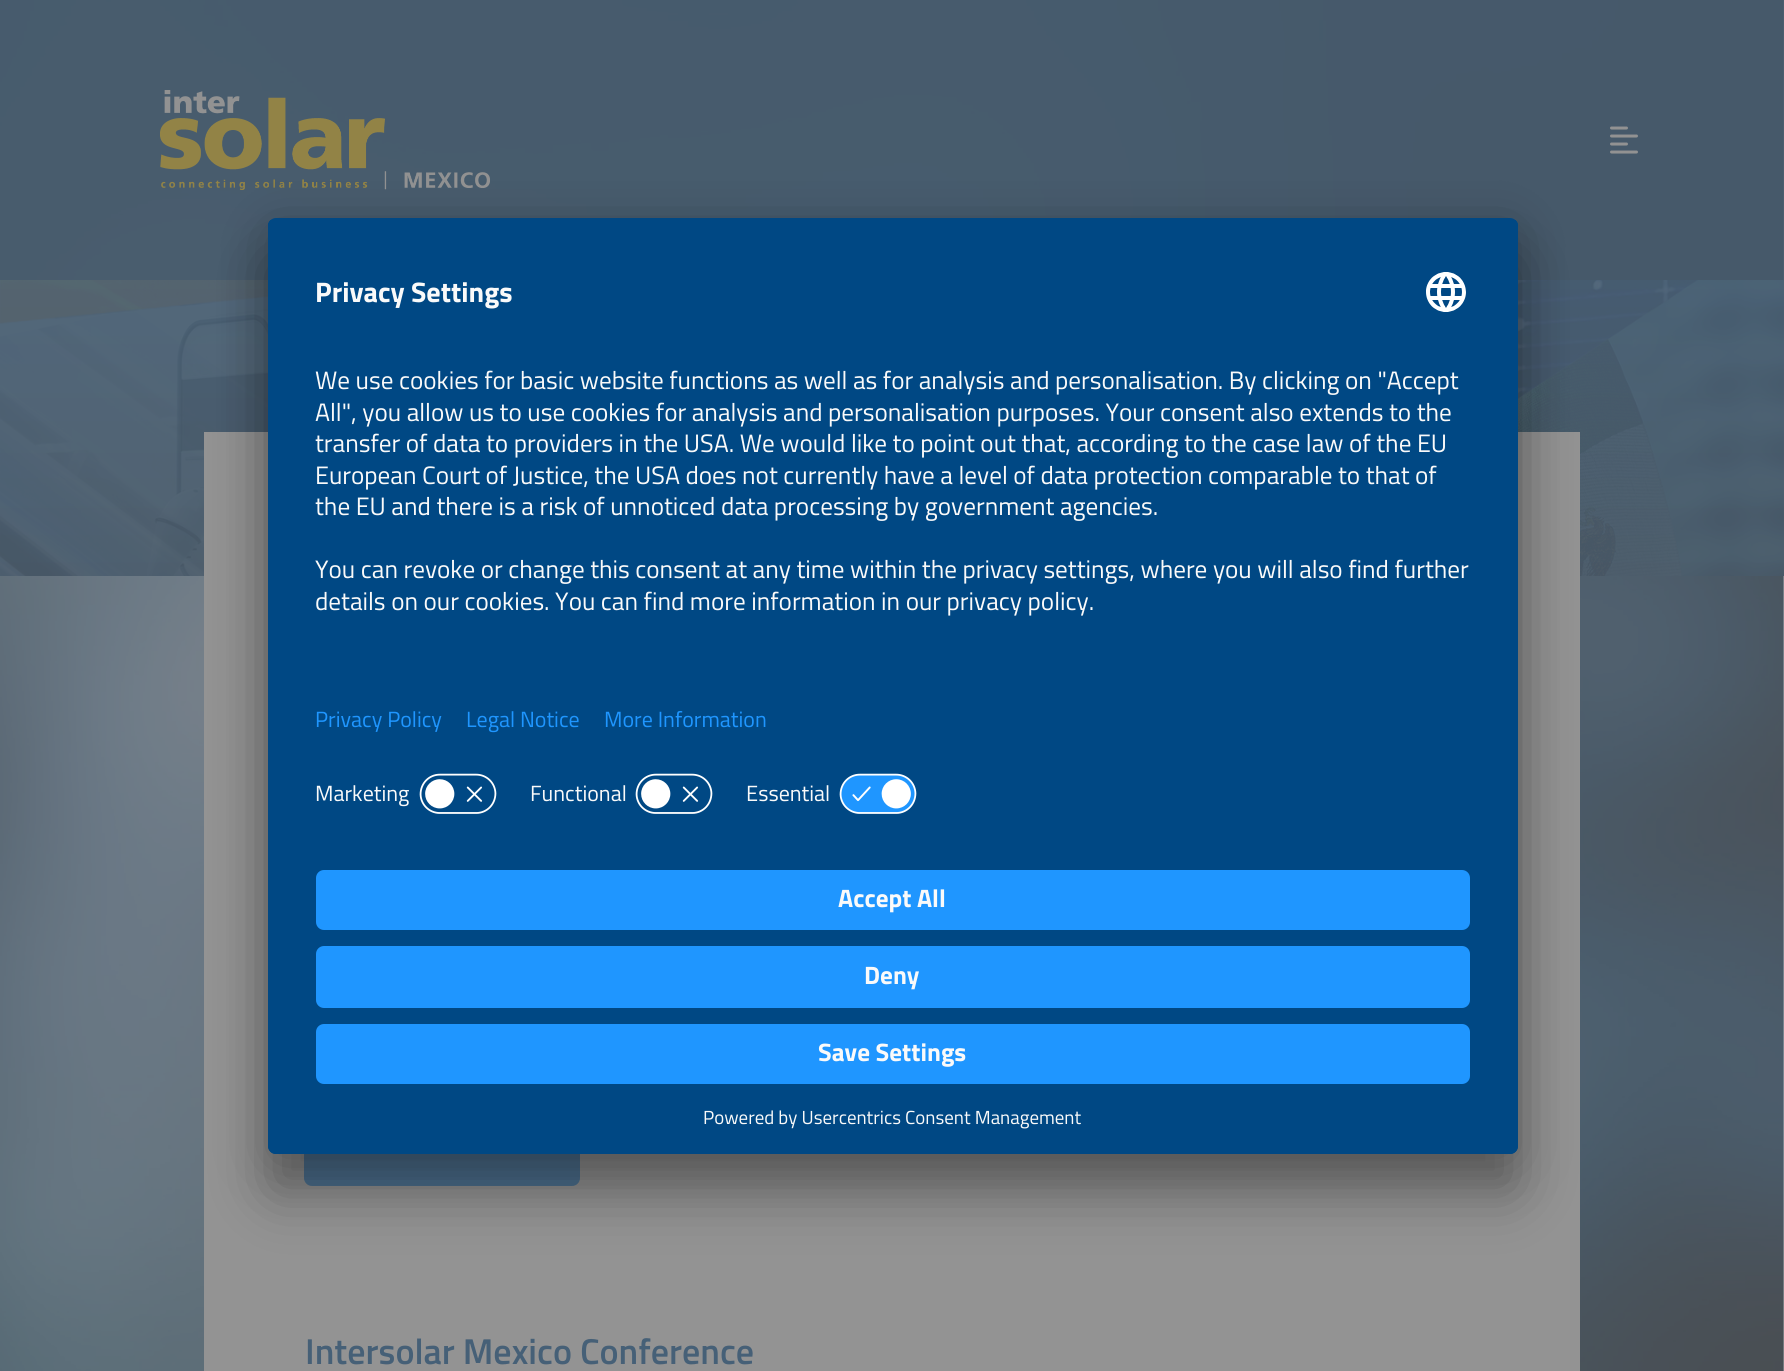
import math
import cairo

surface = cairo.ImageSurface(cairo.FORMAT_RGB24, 1784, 1371)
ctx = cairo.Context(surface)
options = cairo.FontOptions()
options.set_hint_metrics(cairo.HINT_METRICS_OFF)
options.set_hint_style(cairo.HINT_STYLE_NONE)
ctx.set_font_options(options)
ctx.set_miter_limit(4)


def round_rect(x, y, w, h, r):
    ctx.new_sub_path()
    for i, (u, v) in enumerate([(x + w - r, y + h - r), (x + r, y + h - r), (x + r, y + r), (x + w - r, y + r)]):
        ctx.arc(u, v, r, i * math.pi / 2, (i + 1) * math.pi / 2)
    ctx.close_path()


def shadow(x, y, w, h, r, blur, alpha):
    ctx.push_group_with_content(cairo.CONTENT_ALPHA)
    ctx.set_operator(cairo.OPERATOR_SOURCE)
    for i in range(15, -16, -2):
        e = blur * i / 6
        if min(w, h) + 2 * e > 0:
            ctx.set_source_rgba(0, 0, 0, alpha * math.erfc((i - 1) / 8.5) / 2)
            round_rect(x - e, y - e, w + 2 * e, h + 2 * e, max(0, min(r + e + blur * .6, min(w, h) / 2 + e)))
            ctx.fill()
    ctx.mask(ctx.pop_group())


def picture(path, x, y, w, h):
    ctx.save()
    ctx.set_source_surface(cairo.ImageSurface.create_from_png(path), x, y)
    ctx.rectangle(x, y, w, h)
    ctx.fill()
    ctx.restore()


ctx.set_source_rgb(1, 1, 1)
ctx.paint()
picture("img1.png", 0, 0, 1784, 1371)
ctx.set_source_rgba(0.275, 0.353, 0.424, 0.88)
ctx.rectangle(0, 0, 1784, 280)
ctx.fill()
picture("img2.png", 160, 90, 330, 100)
picture("img3.png", 1610, 126, 28, 28)
picture("img4.png", 0, 280, 1784, 296)
gradient = cairo.LinearGradient(892, 280, 892, 856)
gradient.add_color_stop_rgba(0, 0.275, 0.376, 0.467, 0.81)
gradient.add_color_stop_rgba(1, 0.275, 0.325, 0.369, 0.81)
ctx.set_source(gradient)
ctx.rectangle(0, 280, 1784, 296)
ctx.fill()
ctx.set_source_rgb(0.576, 0.576, 0.576)
ctx.rectangle(204, 432, 1376, 939)
ctx.fill()
ctx.set_source_rgb(0.31, 0.451, 0.576)
round_rect(304, 1114, 276, 72, 8)
ctx.fill()
ctx.set_source_rgb(0, 0, 0)
shadow(268, 258, 1250, 936, 8, 28, 0.3)
shadow(268, 228, 1250, 936, 8, 26, 0.22)
ctx.set_source_rgb(0, 0.282, 0.518)
round_rect(268, 218, 1250, 936, 8)
ctx.fill()
ctx.save()
round_rect(268, 218, 1250, 936, 8)
ctx.clip()
ctx.new_path()
ctx.move_to(276, 218)
ctx.line_to(1510, 218)
ctx.curve_to(1514.5, 218, 1518, 221.5, 1518, 226)
ctx.line_to(1518, 846)
ctx.line_to(268, 846)
ctx.line_to(268, 226)
ctx.curve_to(268, 221.5, 271.5, 218, 276, 218)
ctx.close_path()
ctx.clip()
ctx.rectangle(268, 220, 1250, 626)
ctx.fill()
ctx.rectangle(268, 220, 1250, 546)
ctx.fill()
ctx.restore()
ctx.select_font_face("Titillium Web", cairo.FONT_SLANT_NORMAL, cairo.FONT_WEIGHT_BOLD)
ctx.set_font_size(28.25)
ctx.set_source_rgb(0.98, 0.98, 0.98)
ctx.move_to(315, 302)
ctx.show_text("Privacy Settings")
picture("img5.png", 1426, 272, 40, 40)
ctx.select_font_face("Titillium Web")
ctx.set_font_size(25.2)
ctx.move_to(315, 389)
ctx.show_text("We use cookies for basic website functions as well as for analysis and personalisation. By clicking on \"Accept")
ctx.move_to(315, 421)
ctx.show_text("All\", you allow us to use cookies for analysis and personalisation purposes. Your consent also extends to the")
ctx.move_to(315, 452)
ctx.show_text("transfer of data to providers in the USA. We would like to point out that, according to the case law of the EU")
ctx.move_to(315, 484)
ctx.show_text("European Court of Justice, the USA does not currently have a level of data protection comparable to that of")
ctx.move_to(315, 515)
ctx.show_text("the EU and there is a risk of unnoticed data processing by government agencies.")
ctx.move_to(315, 578)
ctx.show_text("You can revoke or change this consent at any time within the privacy settings, where you will also find further")
ctx.move_to(315, 610)
ctx.show_text("details on our cookies. You can find more information in our privacy policy.")
ctx.set_font_size(22)
ctx.set_source_rgb(0.122, 0.588, 1)
ctx.move_to(315, 727)
ctx.show_text("Privacy Policy")
ctx.move_to(466, 727)
ctx.show_text("Legal Notice")
ctx.move_to(604, 727)
ctx.show_text("More Information")
ctx.set_source_rgb(0.98, 0.98, 0.98)
ctx.move_to(315, 801)
ctx.show_text("Marketing")
picture("img6.png", 419, 773, 78, 41)
ctx.move_to(530, 801)
ctx.show_text("Functional")
picture("img6.png", 635, 773, 78, 41)
ctx.move_to(746, 801)
ctx.show_text("Essential")
picture("img7.png", 839, 773, 78, 41)
ctx.set_source_rgb(0, 0.282, 0.518)
ctx.new_path()
ctx.move_to(268, 846)
ctx.line_to(1518, 846)
ctx.line_to(1518, 1146)
ctx.curve_to(1518, 1150.5, 1514.5, 1154, 1510, 1154)
ctx.line_to(276, 1154)
ctx.curve_to(271.5, 1154, 268, 1150.5, 268, 1146)
ctx.close_path()
ctx.fill()
ctx.set_source_rgb(0.122, 0.588, 1)
round_rect(316, 870, 1154, 60, 8)
ctx.fill()
ctx.select_font_face("Titillium Web", cairo.FONT_SLANT_NORMAL, cairo.FONT_WEIGHT_BOLD)
ctx.set_font_size(25.2)
ctx.set_source_rgb(0.98, 0.98, 0.98)
ctx.move_to(838, 907)
ctx.show_text("Accept All")
ctx.set_source_rgb(0.122, 0.588, 1)
round_rect(316, 946, 1154, 62, 8)
ctx.fill()
ctx.set_source_rgb(0.98, 0.98, 0.98)
ctx.move_to(864, 984)
ctx.show_text("Deny")
ctx.set_source_rgb(0.122, 0.588, 1)
round_rect(316, 1024, 1154, 60, 8)
ctx.fill()
ctx.set_source_rgb(0.98, 0.98, 0.98)
ctx.move_to(818, 1061)
ctx.show_text("Save Settings")
ctx.select_font_face("Titillium Web")
ctx.set_font_size(18.9)
ctx.move_to(703, 1124)
ctx.show_text("Powered by Usercentrics Consent Management")
ctx.select_font_face("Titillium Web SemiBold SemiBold")
ctx.set_font_size(36)
ctx.set_source_rgb(0.275, 0.376, 0.467)
ctx.move_to(305, 1364)
ctx.show_text("Intersolar Mexico Conference")
surface.write_to_png("page.png")
